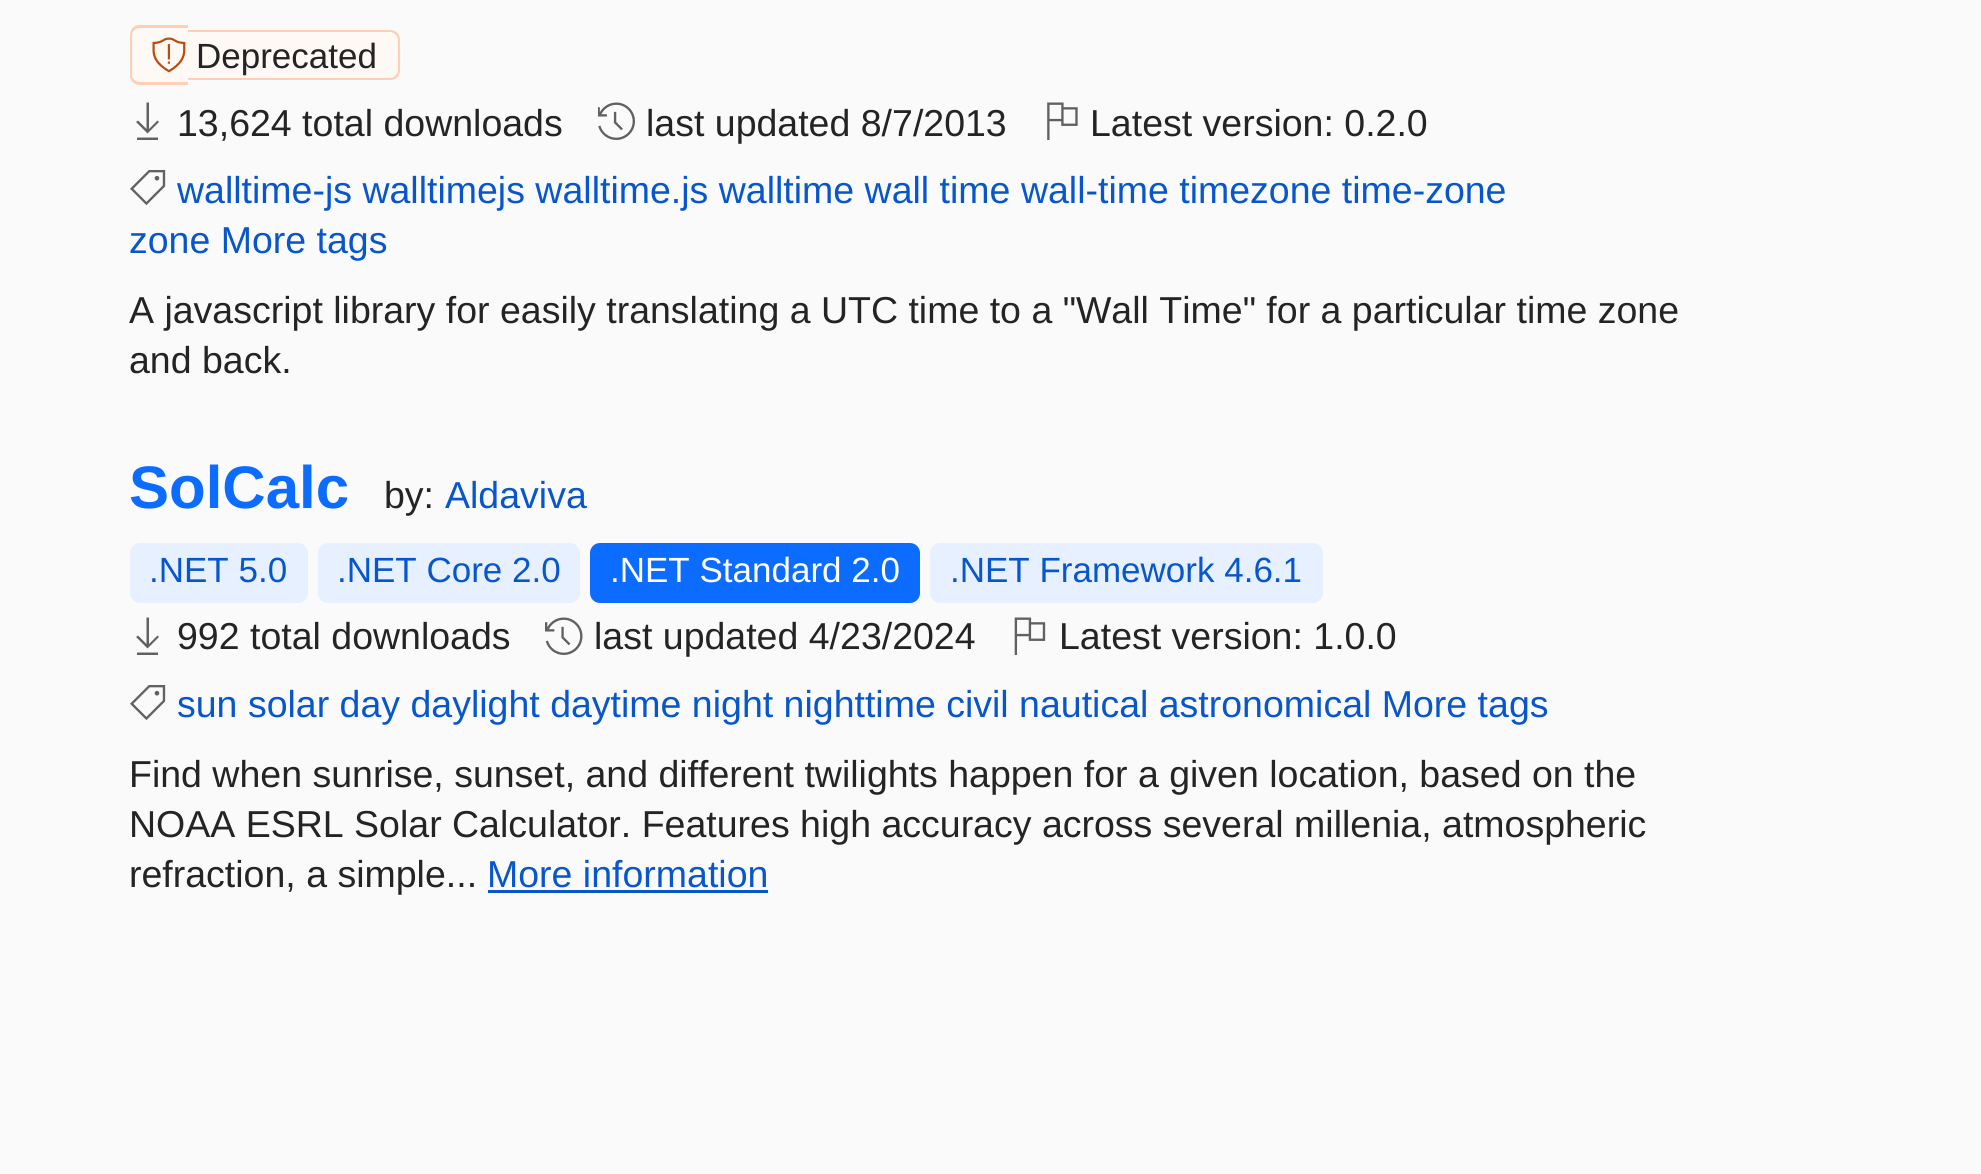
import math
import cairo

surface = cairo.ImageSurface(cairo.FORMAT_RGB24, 1981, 1174)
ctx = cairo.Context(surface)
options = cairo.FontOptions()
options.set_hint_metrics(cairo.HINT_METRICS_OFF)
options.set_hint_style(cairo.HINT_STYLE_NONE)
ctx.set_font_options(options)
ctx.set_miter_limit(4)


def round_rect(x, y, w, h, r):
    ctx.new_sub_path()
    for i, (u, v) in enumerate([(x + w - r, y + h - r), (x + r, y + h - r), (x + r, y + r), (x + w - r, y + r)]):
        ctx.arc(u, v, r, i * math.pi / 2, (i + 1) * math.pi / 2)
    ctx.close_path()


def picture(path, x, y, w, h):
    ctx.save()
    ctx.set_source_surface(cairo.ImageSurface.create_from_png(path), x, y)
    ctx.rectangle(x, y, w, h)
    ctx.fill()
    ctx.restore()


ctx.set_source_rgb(0.98, 0.98, 0.98)
ctx.paint()
ctx.set_source_rgb(1, 0.976, 0.961)
ctx.new_path()
ctx.move_to(140, 25)
ctx.line_to(188, 25)
ctx.line_to(188, 85)
ctx.line_to(140, 85)
ctx.curve_to(134.5, 85, 130, 80.5, 130, 75)
ctx.line_to(130, 35)
ctx.curve_to(130, 29.5, 134.5, 25, 140, 25)
ctx.close_path()
ctx.fill()
ctx.set_source_rgb(0.992, 0.812, 0.706)
ctx.set_fill_rule(cairo.FILL_RULE_EVEN_ODD)
ctx.new_path()
ctx.move_to(140, 25)
ctx.line_to(188, 25)
ctx.line_to(188, 85)
ctx.line_to(140, 85)
ctx.curve_to(134, 85, 130, 81, 130, 75)
ctx.line_to(130, 35)
ctx.curve_to(130, 29, 134, 25, 140, 25)
ctx.close_path()
ctx.move_to(140, 28)
ctx.line_to(188, 28)
ctx.line_to(188, 82)
ctx.line_to(140, 82)
ctx.curve_to(136, 82, 132, 79, 132, 75)
ctx.line_to(132, 35)
ctx.curve_to(132, 31, 136, 28, 140, 28)
ctx.close_path()
ctx.fill()
ctx.set_source_rgb(1, 0.976, 0.961)
ctx.new_path()
ctx.move_to(188, 30)
ctx.line_to(390, 30)
ctx.curve_to(395.5, 30, 400, 34.5, 400, 40)
ctx.line_to(400, 70)
ctx.curve_to(400, 75.5, 395.5, 80, 390, 80)
ctx.line_to(188, 80)
ctx.close_path()
ctx.fill()
ctx.set_source_rgb(0.992, 0.812, 0.706)
ctx.new_path()
ctx.move_to(188, 30)
ctx.line_to(390, 30)
ctx.curve_to(396, 30, 400, 34, 400, 40)
ctx.line_to(400, 70)
ctx.curve_to(400, 76, 396, 80, 390, 80)
ctx.line_to(188, 80)
ctx.close_path()
ctx.move_to(188, 32)
ctx.line_to(390, 32)
ctx.curve_to(394, 32, 398, 36, 398, 40)
ctx.line_to(398, 70)
ctx.curve_to(398, 74, 394, 78, 390, 78)
ctx.line_to(188, 78)
ctx.close_path()
ctx.fill()
picture("img1.png", 152, 37, 34, 36)
ctx.select_font_face("Liberation Sans")
ctx.set_font_size(35)
ctx.set_source_rgb(0.141, 0.141, 0.141)
ctx.move_to(196, 68)
ctx.show_text("Deprecated")
ctx.set_source_rgb(0.38, 0.38, 0.38)
ctx.set_fill_rule(cairo.FILL_RULE_WINDING)
ctx.new_path()
ctx.move_to(137, 140)
ctx.line_to(137, 137.5)
ctx.line_to(158, 137.5)
ctx.line_to(158, 140)
ctx.close_path()
ctx.move_to(159, 122)
ctx.line_to(147.5, 133.5)
ctx.line_to(136, 122)
ctx.line_to(138, 120.5)
ctx.line_to(146.5, 129)
ctx.line_to(146.5, 102.5)
ctx.line_to(149, 102.5)
ctx.line_to(149, 129)
ctx.line_to(157.5, 120.5)
ctx.close_path()
ctx.fill()
ctx.set_font_size(37.5)
ctx.set_source_rgb(0.141, 0.141, 0.141)
ctx.move_to(177, 136)
ctx.show_text("13,624 total downloads")
picture("img2.png", 598, 102, 37, 38)
ctx.move_to(646, 136)
ctx.show_text("last updated 8/7/2013")
picture("img3.png", 1047, 102, 31, 38)
ctx.move_to(1090, 136)
ctx.show_text("Latest version: 0.2.0")
picture("img4.png", 130, 170, 36, 35)
ctx.set_source_rgb(0.035, 0.337, 0.8)
ctx.move_to(177, 203)
ctx.show_text("walltime-js walltimejs walltime.js walltime wall time wall-time timezone time-zone")
ctx.move_to(129, 253)
ctx.show_text("zone More tags")
ctx.set_source_rgb(0.141, 0.141, 0.141)
ctx.move_to(129, 323)
ctx.show_text("A javascript library for easily translating a UTC time to a \"Wall Time\" for a particular time zone")
ctx.move_to(129, 373)
ctx.show_text("and back.")
ctx.select_font_face("Liberation Sans", cairo.FONT_SLANT_NORMAL, cairo.FONT_WEIGHT_BOLD)
ctx.set_font_size(60)
ctx.set_source_rgb(0.043, 0.424, 1)
ctx.move_to(129, 508)
ctx.show_text("SolCalc")
ctx.select_font_face("Liberation Sans")
ctx.set_font_size(37.5)
ctx.set_source_rgb(0.141, 0.141, 0.141)
ctx.move_to(384, 508)
ctx.show_text("by:")
ctx.set_source_rgb(0.035, 0.337, 0.8)
ctx.move_to(445, 508)
ctx.show_text("Aldaviva")
ctx.set_source_rgb(0.906, 0.941, 1)
round_rect(130, 543, 178, 60, 10)
ctx.fill()
ctx.set_font_size(35)
ctx.set_source_rgb(0.035, 0.337, 0.8)
ctx.move_to(149, 582)
ctx.show_text(".NET 5.0")
ctx.set_source_rgb(0.906, 0.941, 1)
round_rect(318, 543, 262, 60, 10)
ctx.fill()
ctx.set_source_rgb(0.035, 0.337, 0.8)
ctx.move_to(337, 582)
ctx.show_text(".NET Core 2.0")
ctx.set_source_rgb(0.043, 0.424, 1)
round_rect(590, 543, 330, 60, 10)
ctx.fill()
ctx.set_source_rgb(1, 1, 1)
ctx.move_to(610, 582)
ctx.show_text(".NET Standard 2.0")
ctx.set_source_rgb(0.906, 0.941, 1)
round_rect(930, 543, 393, 60, 10)
ctx.fill()
ctx.set_source_rgb(0.035, 0.337, 0.8)
ctx.move_to(950, 582)
ctx.show_text(".NET Framework 4.6.1")
ctx.set_source_rgb(0.38, 0.38, 0.38)
ctx.new_path()
ctx.move_to(137, 655)
ctx.line_to(137, 652.5)
ctx.line_to(158, 652.5)
ctx.line_to(158, 655)
ctx.close_path()
ctx.move_to(159, 637)
ctx.line_to(147.5, 648.5)
ctx.line_to(136, 637)
ctx.line_to(138, 635.5)
ctx.line_to(146.5, 644)
ctx.line_to(146.5, 617.5)
ctx.line_to(149, 617.5)
ctx.line_to(149, 644)
ctx.line_to(157.5, 635.5)
ctx.close_path()
ctx.fill()
ctx.set_font_size(37.5)
ctx.set_source_rgb(0.141, 0.141, 0.141)
ctx.move_to(177, 649)
ctx.show_text("992 total downloads")
picture("img5.png", 545, 617, 38, 38)
ctx.move_to(594, 649)
ctx.show_text("last updated 4/23/2024")
picture("img6.png", 1014, 617, 32, 38)
ctx.move_to(1059, 649)
ctx.show_text("Latest version: 1.0.0")
picture("img4.png", 130, 685, 36, 35)
ctx.set_source_rgb(0.035, 0.337, 0.8)
ctx.move_to(177, 717)
ctx.show_text("sun solar day daylight daytime night nighttime civil nautical astronomical More tags")
ctx.set_source_rgb(0.141, 0.141, 0.141)
ctx.move_to(129, 787)
ctx.show_text("Find when sunrise, sunset, and different twilights happen for a given location, based on the")
ctx.move_to(129, 837)
ctx.show_text("NOAA ESRL Solar Calculator. Features high accuracy across several millenia, atmospheric")
ctx.move_to(129, 887)
ctx.show_text("refraction, a simple...")
ctx.set_source_rgb(0.035, 0.337, 0.8)
ctx.move_to(487, 887)
ctx.show_text("More information")
ctx.rectangle(488, 890, 280, 3)
ctx.fill()
surface.write_to_png("page.png")
